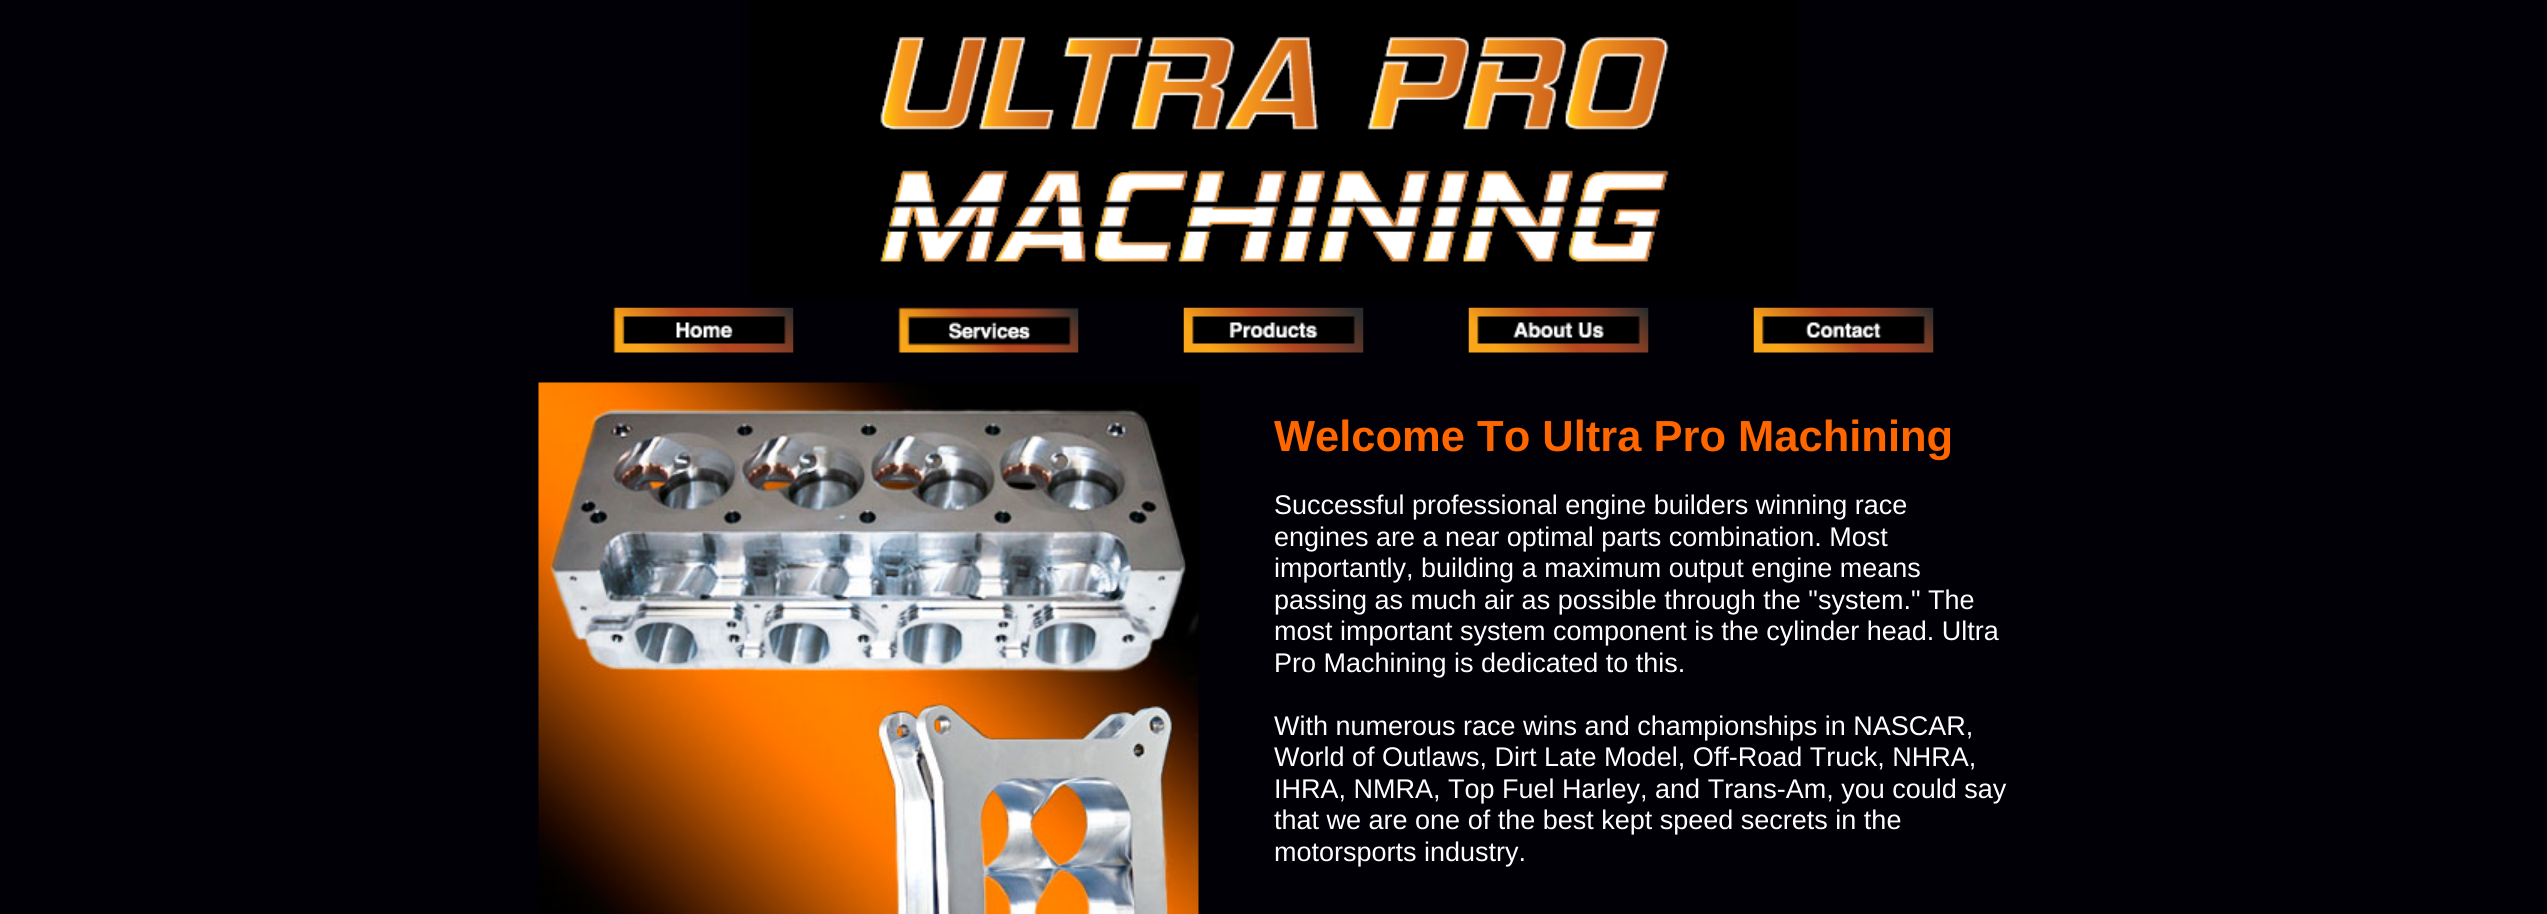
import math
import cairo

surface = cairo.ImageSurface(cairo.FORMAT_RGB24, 2547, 914)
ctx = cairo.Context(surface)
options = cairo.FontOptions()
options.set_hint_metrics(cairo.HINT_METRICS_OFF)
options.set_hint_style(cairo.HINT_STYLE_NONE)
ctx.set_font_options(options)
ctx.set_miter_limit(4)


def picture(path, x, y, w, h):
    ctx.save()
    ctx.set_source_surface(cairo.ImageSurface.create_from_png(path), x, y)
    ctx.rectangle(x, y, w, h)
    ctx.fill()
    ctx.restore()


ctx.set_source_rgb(0.004, 0, 0.024)
ctx.paint()
picture("img1.png", 750, 0, 1048, 299)
picture("img2.png", 613, 307, 181, 46)
picture("img3.png", 898, 307, 181, 46)
picture("img4.png", 1183, 307, 181, 46)
picture("img5.png", 1468, 307, 181, 46)
picture("img6.png", 1753, 307, 181, 46)
picture("img7.png", 538, 382, 661, 532)
ctx.select_font_face("Liberation Sans", cairo.FONT_SLANT_NORMAL, cairo.FONT_WEIGHT_BOLD)
ctx.set_font_size(43.5)
ctx.set_source_rgb(1, 0.4, 0)
ctx.move_to(1274, 451)
ctx.show_text("Welcome To Ultra Pro Machining")
ctx.select_font_face("Liberation Sans")
ctx.set_font_size(27)
ctx.set_source_rgb(1, 1, 1)
ctx.move_to(1274, 514)
ctx.show_text("Successful professional engine builders winning race")
ctx.move_to(1274, 546)
ctx.show_text("engines are a near optimal parts combination. Most")
ctx.move_to(1274, 577)
ctx.show_text("importantly, building a maximum output engine means")
ctx.move_to(1274, 609)
ctx.show_text("passing as much air as possible through the \"system.\" The")
ctx.move_to(1274, 640)
ctx.show_text("most important system component is the cylinder head. Ultra")
ctx.move_to(1274, 672)
ctx.show_text("Pro Machining is dedicated to this.")
ctx.move_to(1274, 735)
ctx.show_text("With numerous race wins and championships in NASCAR,")
ctx.move_to(1274, 766)
ctx.show_text("World of Outlaws, Dirt Late Model, Off-Road Truck, NHRA,")
ctx.move_to(1274, 798)
ctx.show_text("IHRA, NMRA, Top Fuel Harley, and Trans-Am, you could say")
ctx.move_to(1274, 829)
ctx.show_text("that we are one of the best kept speed secrets in the")
ctx.move_to(1274, 861)
ctx.show_text("motorsports industry.")
surface.write_to_png("page.png")
